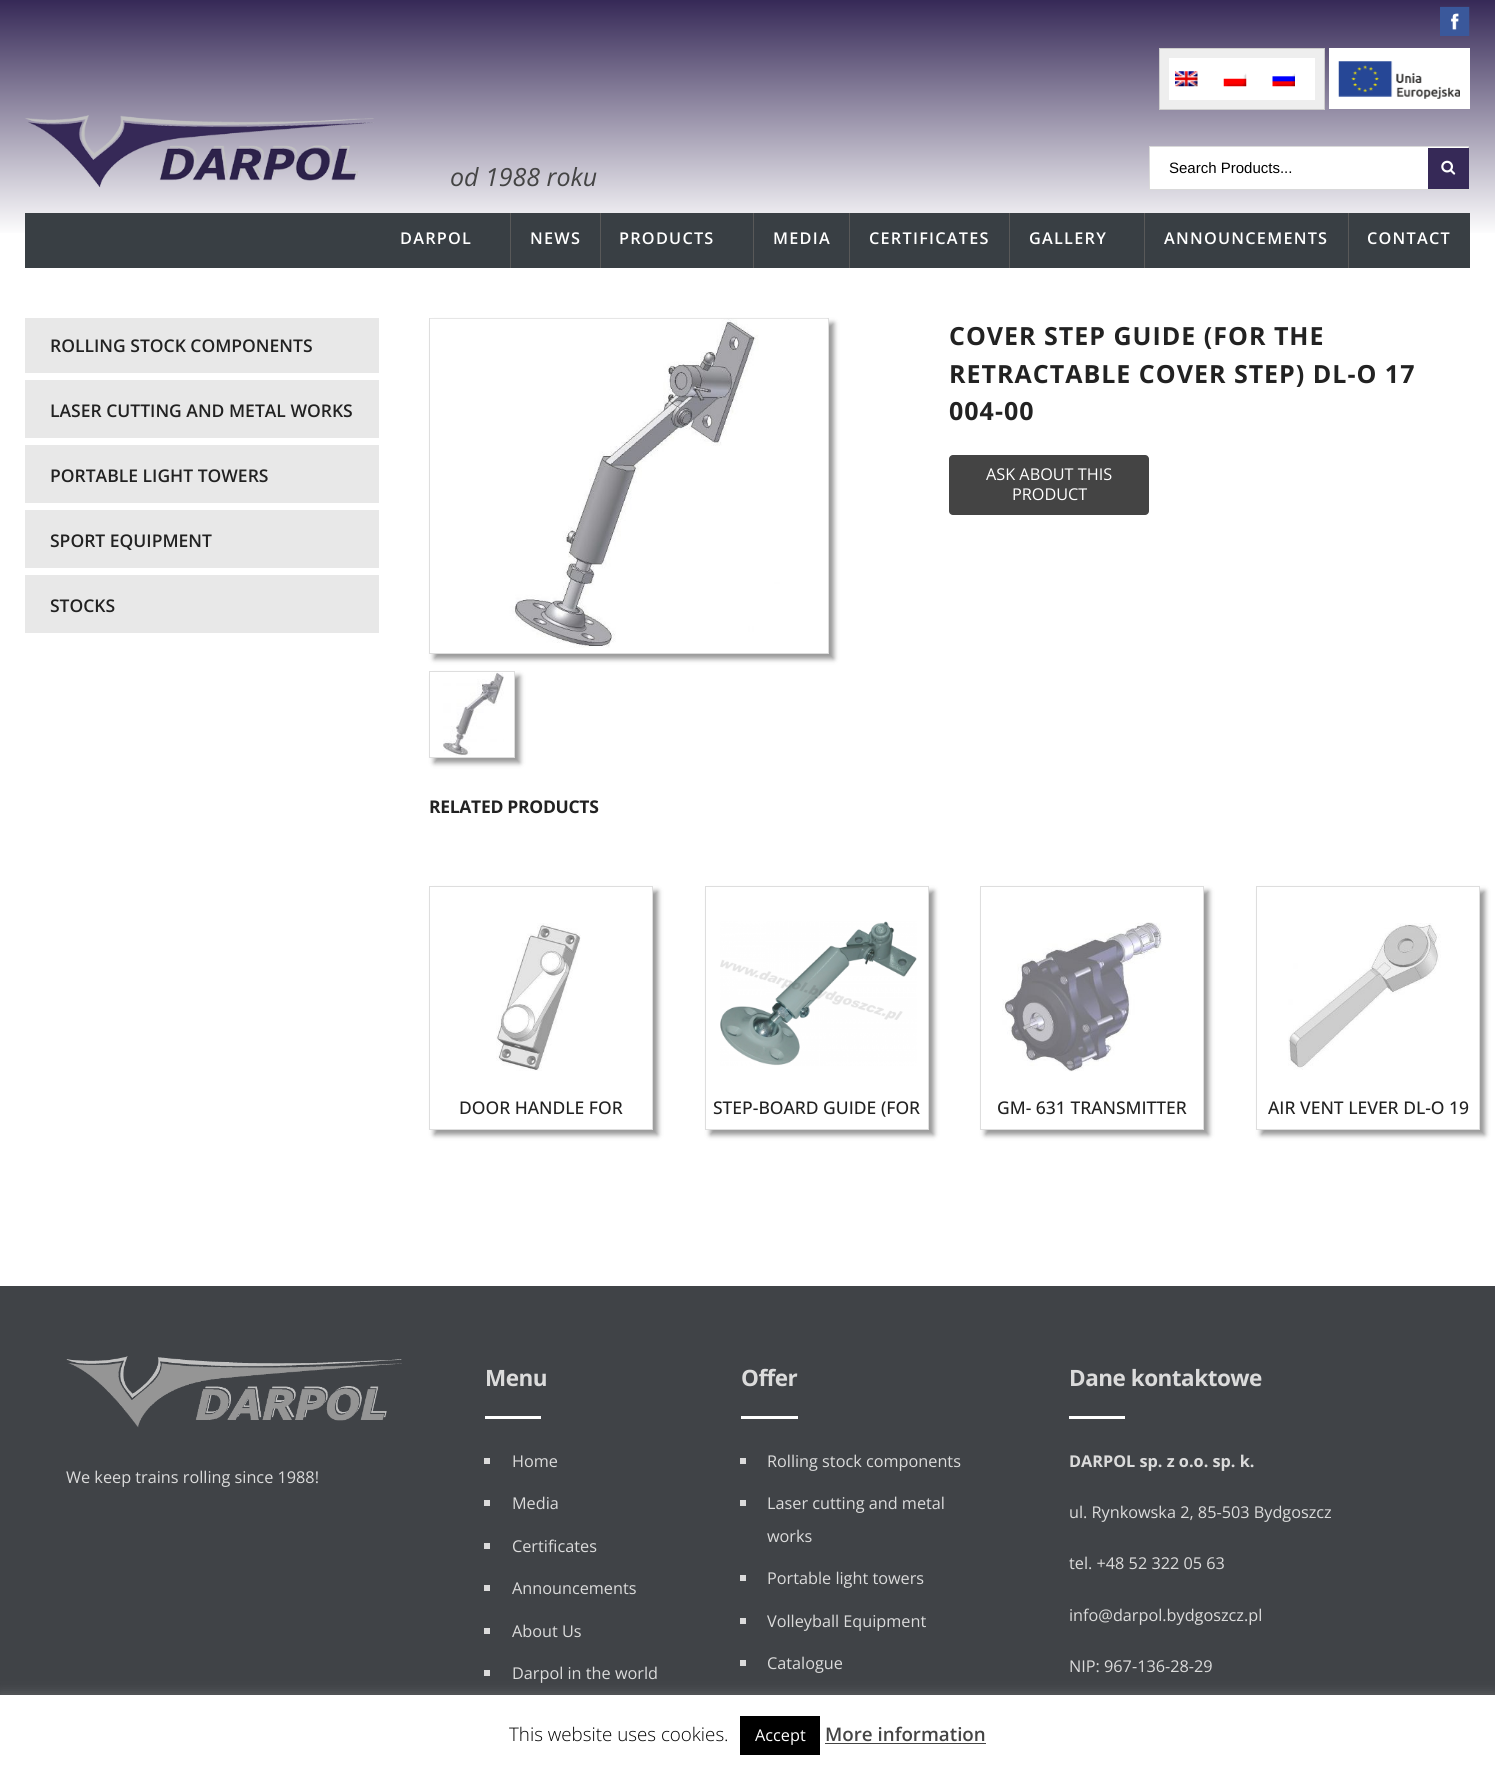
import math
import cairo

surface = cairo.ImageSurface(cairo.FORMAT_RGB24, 1495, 1770)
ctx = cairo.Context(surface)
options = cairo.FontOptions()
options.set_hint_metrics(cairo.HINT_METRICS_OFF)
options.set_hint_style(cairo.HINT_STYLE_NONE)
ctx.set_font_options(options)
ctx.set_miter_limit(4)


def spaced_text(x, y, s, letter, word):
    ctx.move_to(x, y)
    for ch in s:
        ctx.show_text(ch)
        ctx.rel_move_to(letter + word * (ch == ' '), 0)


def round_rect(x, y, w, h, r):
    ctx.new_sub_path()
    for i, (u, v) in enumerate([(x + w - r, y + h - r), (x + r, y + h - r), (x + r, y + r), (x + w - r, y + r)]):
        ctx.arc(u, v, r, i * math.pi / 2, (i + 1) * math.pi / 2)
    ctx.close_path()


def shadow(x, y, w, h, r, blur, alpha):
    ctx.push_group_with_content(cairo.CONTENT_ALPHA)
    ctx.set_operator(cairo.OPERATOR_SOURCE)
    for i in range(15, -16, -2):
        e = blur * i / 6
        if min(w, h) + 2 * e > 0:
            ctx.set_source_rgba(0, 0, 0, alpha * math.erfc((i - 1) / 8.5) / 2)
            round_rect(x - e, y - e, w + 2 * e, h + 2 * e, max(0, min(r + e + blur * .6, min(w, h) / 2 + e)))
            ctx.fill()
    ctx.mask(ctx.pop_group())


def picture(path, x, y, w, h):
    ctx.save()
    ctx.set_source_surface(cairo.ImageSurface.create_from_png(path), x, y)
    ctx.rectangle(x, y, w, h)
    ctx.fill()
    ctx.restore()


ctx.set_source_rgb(1, 1, 1)
ctx.paint()
gradient = cairo.LinearGradient(748, 0, 748, 268)
gradient.add_color_stop_rgba(0, 0.212, 0.161, 0.341, 1)
gradient.add_color_stop_rgba(0.88, 1, 1, 1, 1)
ctx.set_source(gradient)
ctx.rectangle(0, 0, 1495, 233)
ctx.fill()
picture("img1.png", 1440, 6, 30, 30)
ctx.set_source_rgb(0.933, 0.933, 0.933)
ctx.rectangle(1159.5, 48.5, 165, 61)
ctx.fill_preserve()
ctx.set_source_rgb(0.804, 0.804, 0.804)
ctx.set_line_width(1)
ctx.stroke()
ctx.set_source_rgb(1, 1, 1)
ctx.rectangle(1169, 58, 146, 42)
ctx.fill()
picture("img2.png", 1175, 71, 23, 16)
picture("img3.png", 1223, 73, 24, 14)
picture("img4.png", 1272, 73, 23, 14)
ctx.rectangle(1329, 48, 141, 61)
ctx.fill()
picture("img5.png", 1338, 61, 122, 38)
picture("img6.png", 25, 115, 349, 73)
ctx.select_font_face("Open Sans", cairo.FONT_SLANT_ITALIC)
ctx.set_font_size(25)
ctx.set_source_rgb(0.267, 0.267, 0.267)
ctx.move_to(450, 186)
ctx.show_text("od 1988 roku")
ctx.set_source_rgb(1, 1, 1)
ctx.rectangle(1149.5, 146.5, 319, 43)
ctx.fill_preserve()
ctx.set_source_rgb(0.851, 0.851, 0.851)
ctx.stroke()
ctx.select_font_face("Liberation Sans")
ctx.set_font_size(15)
ctx.set_source_rgb(0, 0, 0)
ctx.move_to(1169, 173)
ctx.show_text("Search Products...")
ctx.set_source_rgb(0.212, 0.161, 0.341)
ctx.rectangle(1428, 148, 41, 41)
ctx.fill()
picture("img7.png", 1441, 160, 15, 15)
ctx.set_source_rgb(0.224, 0.247, 0.267)
ctx.rectangle(25, 213, 1445, 55)
ctx.fill()
ctx.select_font_face("Open Sans SemiBold")
ctx.set_font_size(16.25)
ctx.set_source_rgb(1, 1, 1)
spaced_text(400, 244, "DARPOL", 1.25, 0)
ctx.set_source_rgb(0.349, 0.349, 0.349)
ctx.rectangle(510, 213, 1, 55)
ctx.fill()
ctx.set_source_rgb(1, 1, 1)
spaced_text(530, 244, "NEWS", 1.25, 0)
ctx.set_source_rgb(0.349, 0.349, 0.349)
ctx.rectangle(600, 213, 1, 55)
ctx.fill()
ctx.set_source_rgb(1, 1, 1)
spaced_text(619, 244, "PRODUCTS", 1.25, 0)
ctx.set_source_rgb(0.349, 0.349, 0.349)
ctx.rectangle(753, 213, 1, 55)
ctx.fill()
ctx.set_source_rgb(1, 1, 1)
spaced_text(773, 244, "MEDIA", 1.25, 0)
ctx.set_source_rgb(0.349, 0.349, 0.349)
ctx.rectangle(849, 213, 1, 55)
ctx.fill()
ctx.set_source_rgb(1, 1, 1)
spaced_text(869, 244, "CERTIFICATES", 1.25, 0)
ctx.set_source_rgb(0.349, 0.349, 0.349)
ctx.rectangle(1009, 213, 1, 55)
ctx.fill()
ctx.set_source_rgb(1, 1, 1)
spaced_text(1029, 244, "GALLERY", 1.25, 0)
ctx.set_source_rgb(0.349, 0.349, 0.349)
ctx.rectangle(1144, 213, 1, 55)
ctx.fill()
ctx.set_source_rgb(1, 1, 1)
spaced_text(1164, 244, "ANNOUNCEMENTS", 1.25, 0)
ctx.set_source_rgb(0.349, 0.349, 0.349)
ctx.rectangle(1348, 213, 1, 55)
ctx.fill()
ctx.set_source_rgb(1, 1, 1)
spaced_text(1367, 244, "CONTACT", 1.25, 0)
ctx.set_source_rgb(0.91, 0.91, 0.91)
ctx.rectangle(25, 318, 354, 315)
ctx.fill()
ctx.set_source_rgb(1, 1, 1)
ctx.rectangle(25, 373, 354, 7)
ctx.fill()
ctx.set_font_size(17.5)
ctx.set_source_rgb(0.133, 0.133, 0.133)
ctx.move_to(50, 352)
ctx.show_text("ROLLING STOCK COMPONENTS")
ctx.set_source_rgb(1, 1, 1)
ctx.rectangle(25, 438, 354, 7)
ctx.fill()
ctx.set_source_rgb(0.133, 0.133, 0.133)
ctx.move_to(50, 417)
ctx.show_text("LASER CUTTING AND METAL WORKS")
ctx.set_source_rgb(1, 1, 1)
ctx.rectangle(25, 503, 354, 7)
ctx.fill()
ctx.set_source_rgb(0.133, 0.133, 0.133)
ctx.move_to(50, 482)
ctx.show_text("PORTABLE LIGHT TOWERS")
ctx.set_source_rgb(1, 1, 1)
ctx.rectangle(25, 568, 354, 7)
ctx.fill()
ctx.set_source_rgb(0.133, 0.133, 0.133)
ctx.move_to(50, 547)
ctx.show_text("SPORT EQUIPMENT")
ctx.move_to(50, 612)
ctx.show_text("STOCKS")
ctx.save()
ctx.set_fill_rule(cairo.FILL_RULE_EVEN_ODD)
ctx.new_path()
ctx.move_to(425, 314)
ctx.line_to(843, 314)
ctx.line_to(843, 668)
ctx.line_to(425, 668)
ctx.close_path()
ctx.move_to(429, 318)
ctx.line_to(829, 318)
ctx.line_to(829, 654)
ctx.line_to(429, 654)
ctx.close_path()
ctx.clip()
ctx.set_source_rgb(0, 0, 0)
shadow(434, 323, 400, 336, 0, 2.5, 0.4)
ctx.restore()
ctx.rectangle(429.5, 318.5, 399, 335)
ctx.set_source_rgb(0.871, 0.871, 0.871)
ctx.stroke()
picture("img8.png", 430, 318, 398, 330)
ctx.save()
ctx.set_fill_rule(cairo.FILL_RULE_EVEN_ODD)
ctx.new_path()
ctx.move_to(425, 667)
ctx.line_to(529, 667)
ctx.line_to(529, 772)
ctx.line_to(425, 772)
ctx.close_path()
ctx.move_to(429, 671)
ctx.line_to(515, 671)
ctx.line_to(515, 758)
ctx.line_to(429, 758)
ctx.close_path()
ctx.clip()
ctx.set_source_rgb(0, 0, 0)
shadow(434, 676, 86, 87, 0, 2.5, 0.4)
ctx.restore()
ctx.rectangle(429.5, 671.5, 85, 86)
ctx.stroke()
picture("img9.png", 443, 672, 61, 84)
ctx.select_font_face("Open Sans", cairo.FONT_SLANT_NORMAL, cairo.FONT_WEIGHT_BOLD)
ctx.set_font_size(25)
ctx.set_source_rgb(0.133, 0.133, 0.133)
spaced_text(949, 345, "COVER STEP GUIDE (FOR THE", 1, 0)
spaced_text(949, 383, "RETRACTABLE COVER STEP) DL-O 17", 1, 0)
spaced_text(949, 420, "004-00", 1, 0)
ctx.set_source_rgb(0.267, 0.267, 0.267)
round_rect(949, 455, 200, 60, 4)
ctx.fill()
ctx.select_font_face("Open Sans")
ctx.set_font_size(16.25)
ctx.set_source_rgb(1, 1, 1)
ctx.move_to(986, 480)
ctx.show_text("ASK ABOUT THIS")
ctx.move_to(1012, 500)
ctx.show_text("PRODUCT")
ctx.select_font_face("Open Sans", cairo.FONT_SLANT_NORMAL, cairo.FONT_WEIGHT_BOLD)
ctx.set_font_size(17.5)
ctx.set_source_rgb(0.133, 0.133, 0.133)
spaced_text(429, 813, "RELATED PRODUCTS", -0.3, 0)
ctx.set_source_rgb(0, 0, 0)
shadow(434, 891, 224, 244, 0, 2.5, 0.4)
ctx.set_source_rgb(1, 1, 1)
ctx.rectangle(429.5, 886.5, 223, 243)
ctx.fill_preserve()
ctx.set_source_rgb(0.871, 0.871, 0.871)
ctx.stroke()
picture("img10.png", 496, 923, 85, 148)
ctx.select_font_face("Open Sans Medium")
ctx.set_source_rgb(0.133, 0.133, 0.133)
ctx.move_to(459, 1114)
ctx.show_text("DOOR HANDLE FOR")
ctx.set_source_rgb(0, 0, 0)
shadow(710, 891, 224, 244, 0, 2.5, 0.4)
ctx.set_source_rgb(1, 1, 1)
ctx.rectangle(705.5, 886.5, 223, 243)
ctx.fill_preserve()
ctx.set_source_rgb(0.871, 0.871, 0.871)
ctx.stroke()
picture("img11.png", 720, 921, 197, 145)
ctx.set_source_rgb(0.133, 0.133, 0.133)
ctx.move_to(713, 1114)
ctx.show_text("STEP-BOARD GUIDE (FOR")
ctx.set_source_rgb(0, 0, 0)
shadow(985, 891, 224, 244, 0, 2.5, 0.4)
ctx.set_source_rgb(1, 1, 1)
ctx.rectangle(980.5, 886.5, 223, 243)
ctx.fill_preserve()
ctx.set_source_rgb(0.871, 0.871, 0.871)
ctx.stroke()
picture("img12.png", 1002, 922, 160, 150)
ctx.set_source_rgb(0.133, 0.133, 0.133)
ctx.move_to(997, 1114)
ctx.show_text("GM- 631 TRANSMITTER")
ctx.save()
ctx.set_fill_rule(cairo.FILL_RULE_EVEN_ODD)
ctx.new_path()
ctx.move_to(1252, 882)
ctx.line_to(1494, 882)
ctx.line_to(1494, 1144)
ctx.line_to(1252, 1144)
ctx.close_path()
ctx.move_to(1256, 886)
ctx.line_to(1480, 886)
ctx.line_to(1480, 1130)
ctx.line_to(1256, 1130)
ctx.close_path()
ctx.clip()
ctx.set_source_rgb(0, 0, 0)
shadow(1261, 891, 224, 244, 0, 2.5, 0.4)
ctx.restore()
ctx.rectangle(1256.5, 886.5, 223, 243)
ctx.set_source_rgb(0.871, 0.871, 0.871)
ctx.stroke()
picture("img13.png", 1288, 923, 153, 147)
ctx.set_source_rgb(0.133, 0.133, 0.133)
ctx.move_to(1268, 1114)
ctx.show_text("AIR VENT LEVER DL-O 19")
ctx.set_source_rgb(0.251, 0.263, 0.278)
ctx.rectangle(0, 1286, 1495, 409)
ctx.fill()
picture("img14.png", 66, 1356, 336, 72)
ctx.select_font_face("Open Sans")
ctx.set_font_size(16.25)
ctx.set_source_rgb(0.859, 0.859, 0.859)
ctx.move_to(66, 1483)
ctx.show_text("We keep trains rolling since 1988!")
ctx.select_font_face("Open Sans", cairo.FONT_SLANT_NORMAL, cairo.FONT_WEIGHT_BOLD)
ctx.set_font_size(22.5)
spaced_text(485, 1386, "Menu", -0.5, 0)
ctx.set_source_rgb(1, 1, 1)
ctx.rectangle(485, 1416, 56, 3)
ctx.fill()
ctx.set_source_rgb(0.859, 0.859, 0.859)
ctx.rectangle(484, 1458, 6, 6)
ctx.fill()
ctx.select_font_face("Open Sans")
ctx.set_font_size(16.25)
ctx.move_to(512, 1467)
ctx.show_text("Home")
ctx.rectangle(484, 1500, 6, 6)
ctx.fill()
ctx.move_to(512, 1509)
ctx.show_text("Media")
ctx.rectangle(484, 1543, 6, 6)
ctx.fill()
ctx.move_to(512, 1552)
ctx.show_text("Certificates")
ctx.rectangle(484, 1585, 6, 6)
ctx.fill()
ctx.move_to(512, 1594)
ctx.show_text("Announcements")
ctx.rectangle(484, 1628, 6, 6)
ctx.fill()
ctx.move_to(512, 1637)
ctx.show_text("About Us")
ctx.rectangle(484, 1670, 6, 6)
ctx.fill()
ctx.move_to(512, 1679)
ctx.show_text("Darpol in the world")
ctx.select_font_face("Open Sans", cairo.FONT_SLANT_NORMAL, cairo.FONT_WEIGHT_BOLD)
ctx.set_font_size(22.5)
spaced_text(741, 1386, "Offer", -0.5, 0)
ctx.set_source_rgb(1, 1, 1)
ctx.rectangle(741, 1416, 57, 3)
ctx.fill()
ctx.set_source_rgb(0.859, 0.859, 0.859)
ctx.rectangle(740, 1458, 6, 6)
ctx.fill()
ctx.select_font_face("Open Sans")
ctx.set_font_size(16.25)
ctx.move_to(767, 1467)
ctx.show_text("Rolling stock components")
ctx.rectangle(740, 1500, 6, 6)
ctx.fill()
ctx.move_to(767, 1509)
ctx.show_text("Laser cutting and metal")
ctx.move_to(767, 1542)
ctx.show_text("works")
ctx.rectangle(740, 1575, 6, 6)
ctx.fill()
ctx.move_to(767, 1584)
ctx.show_text("Portable light towers")
ctx.rectangle(740, 1618, 6, 6)
ctx.fill()
ctx.move_to(767, 1627)
ctx.show_text("Volleyball Equipment")
ctx.rectangle(740, 1660, 6, 6)
ctx.fill()
ctx.move_to(767, 1669)
ctx.show_text("Catalogue")
ctx.select_font_face("Open Sans", cairo.FONT_SLANT_NORMAL, cairo.FONT_WEIGHT_BOLD)
ctx.set_font_size(22.5)
spaced_text(1069, 1386, "Dane kontaktowe", -0.5, 0)
ctx.set_source_rgb(1, 1, 1)
ctx.rectangle(1069, 1416, 56, 3)
ctx.fill()
ctx.set_font_size(16.25)
ctx.set_source_rgb(0.859, 0.859, 0.859)
ctx.move_to(1069, 1467)
ctx.show_text("DARPOL sp. z o.o. sp. k.")
ctx.select_font_face("Open Sans")
ctx.move_to(1069, 1518)
ctx.show_text("ul. Rynkowska 2, 85-503 Bydgoszcz")
ctx.move_to(1069, 1569)
ctx.show_text("tel. +48 52 322 05 63")
ctx.move_to(1069, 1621)
ctx.show_text("info@darpol.bydgoszcz.pl")
ctx.move_to(1069, 1672)
ctx.show_text("NIP: 967-136-28-29")
ctx.set_source_rgb(0.675, 0.671, 0.671)
shadow(0, 1694, 1495, 75, 0, 6, 0.3)
ctx.set_source_rgb(1, 1, 1)
ctx.rectangle(0, 1695, 1495, 75)
ctx.fill()
ctx.select_font_face("Open Sans Light")
ctx.set_font_size(18.75)
ctx.set_source_rgb(0, 0, 0)
ctx.move_to(509, 1741)
ctx.show_text("This website uses cookies.")
ctx.rectangle(740, 1716, 80, 39)
ctx.fill()
ctx.select_font_face("Open Sans")
ctx.set_font_size(16.25)
ctx.set_source_rgb(1, 1, 1)
ctx.move_to(755, 1741)
ctx.show_text("Accept")
ctx.select_font_face("Open Sans SemiBold")
ctx.set_font_size(18.75)
ctx.set_source_rgb(0.267, 0.267, 0.267)
ctx.move_to(825, 1741)
ctx.show_text("More information")
ctx.rectangle(825, 1743, 161, 1)
ctx.fill()
surface.write_to_png("page.png")
